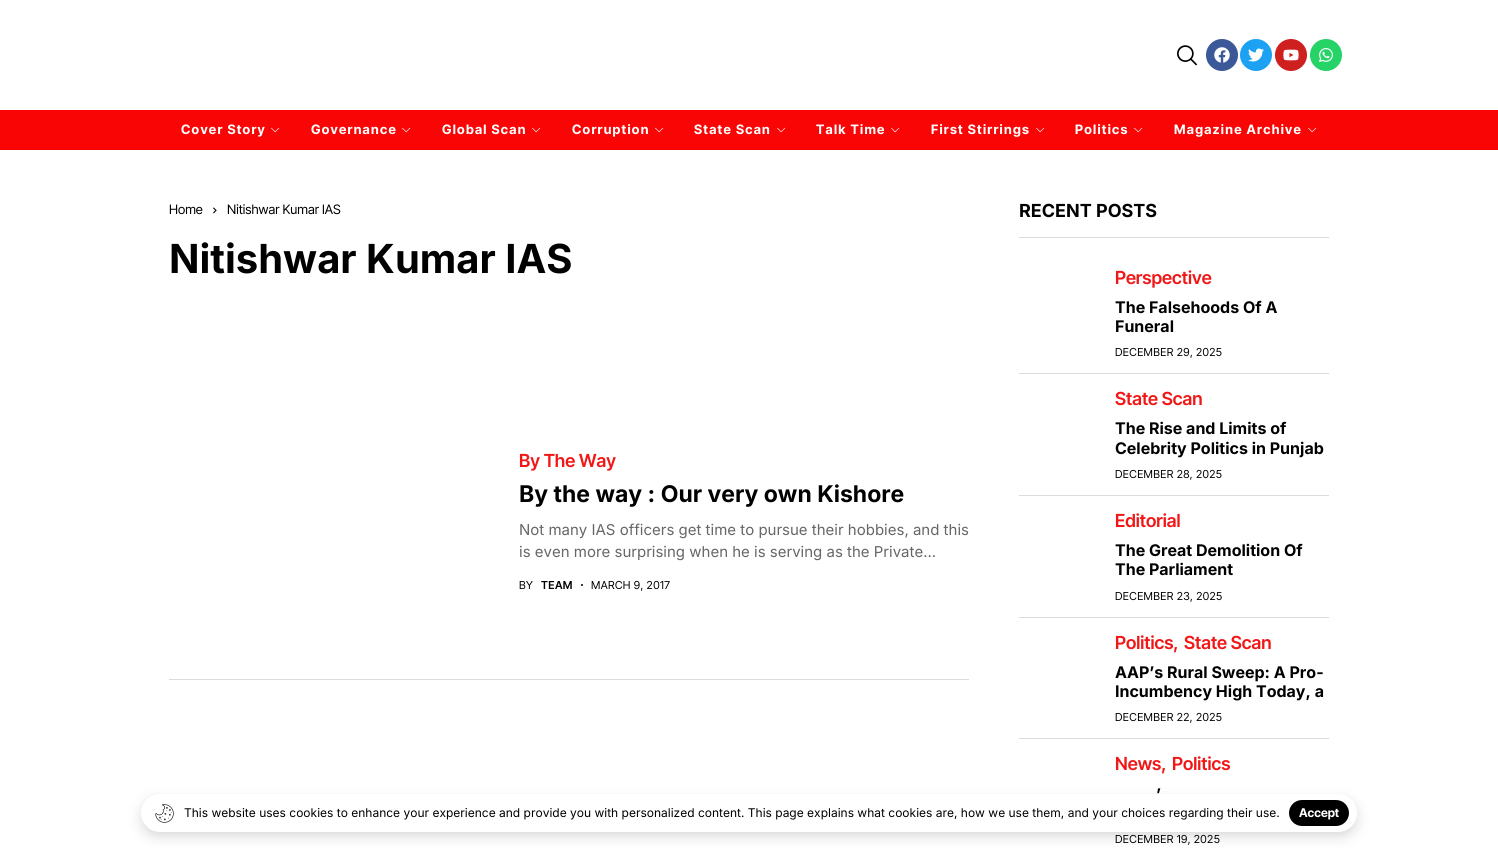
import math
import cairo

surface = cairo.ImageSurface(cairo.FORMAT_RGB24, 1498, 852)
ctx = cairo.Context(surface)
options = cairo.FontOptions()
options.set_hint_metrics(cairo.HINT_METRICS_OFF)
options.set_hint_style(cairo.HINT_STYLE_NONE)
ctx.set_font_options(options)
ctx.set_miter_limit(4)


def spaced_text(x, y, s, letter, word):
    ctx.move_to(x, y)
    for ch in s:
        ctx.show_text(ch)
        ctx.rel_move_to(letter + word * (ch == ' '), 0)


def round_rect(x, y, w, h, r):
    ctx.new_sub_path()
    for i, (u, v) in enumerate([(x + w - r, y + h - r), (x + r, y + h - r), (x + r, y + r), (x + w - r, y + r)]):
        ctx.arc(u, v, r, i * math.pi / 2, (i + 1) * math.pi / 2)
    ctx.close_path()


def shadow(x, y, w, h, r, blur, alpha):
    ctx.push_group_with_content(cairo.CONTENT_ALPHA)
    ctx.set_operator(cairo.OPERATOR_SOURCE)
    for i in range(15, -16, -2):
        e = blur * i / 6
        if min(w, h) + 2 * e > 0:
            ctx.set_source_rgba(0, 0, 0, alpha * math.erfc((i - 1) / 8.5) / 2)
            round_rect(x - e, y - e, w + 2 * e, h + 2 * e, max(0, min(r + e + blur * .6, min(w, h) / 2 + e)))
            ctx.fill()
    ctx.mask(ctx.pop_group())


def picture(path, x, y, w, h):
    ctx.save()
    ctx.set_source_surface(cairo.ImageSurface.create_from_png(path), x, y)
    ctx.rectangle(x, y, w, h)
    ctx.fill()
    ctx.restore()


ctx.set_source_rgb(1, 1, 1)
ctx.paint()
picture("img1.png", 1177, 45, 20, 21)
ctx.set_source_rgb(0.231, 0.349, 0.596)
ctx.arc(1222, 55, 16, 0, 2 * math.pi)
ctx.fill()
picture("img2.png", 1214, 47, 16, 16)
ctx.set_source_rgb(0.114, 0.631, 0.949)
ctx.arc(1256, 55, 16, 0, 2 * math.pi)
ctx.fill()
picture("img3.png", 1248, 48, 16, 14)
ctx.set_source_rgb(0.804, 0.125, 0.122)
ctx.arc(1291, 55, 16, 0, 2 * math.pi)
ctx.fill()
picture("img4.png", 1283, 49, 16, 12)
ctx.set_source_rgb(0.145, 0.827, 0.4)
ctx.arc(1326, 55, 16, 0, 2 * math.pi)
ctx.fill()
picture("img5.png", 1319, 48, 14, 14)
ctx.set_source_rgb(0.98, 0.02, 0.02)
ctx.rectangle(0, 110, 1498, 40)
ctx.fill()
ctx.select_font_face("Inter Tight", cairo.FONT_SLANT_NORMAL, cairo.FONT_WEIGHT_BOLD)
ctx.set_font_size(13)
ctx.set_source_rgb(1, 1, 1)
spaced_text(181, 134, "Cover Story", 1.25, 0)
picture("img6.png", 271, 127, 9, 6)
spaced_text(311, 134, "Governance", 1.25, 0)
picture("img6.png", 402, 127, 9, 6)
spaced_text(442, 134, "Global Scan", 1.25, 0)
picture("img6.png", 532, 127, 9, 6)
spaced_text(572, 134, "Corruption", 1.25, 0)
picture("img6.png", 655, 127, 9, 6)
spaced_text(694, 134, "State Scan", 1.25, 0)
picture("img6.png", 777, 127, 9, 6)
spaced_text(816, 134, "Talk Time", 1.25, 0)
picture("img6.png", 891, 127, 9, 6)
spaced_text(931, 134, "First Stirrings", 1.25, 0)
picture("img6.png", 1036, 127, 9, 6)
spaced_text(1075, 134, "Politics", 1.25, 0)
picture("img6.png", 1134, 127, 9, 6)
spaced_text(1174, 134, "Magazine Archive", 1.25, 0)
picture("img6.png", 1308, 127, 9, 6)
ctx.select_font_face("Inter Tight")
ctx.set_source_rgb(0, 0, 0)
ctx.move_to(169, 214)
ctx.show_text("Home")
picture("img7.png", 213, 207, 4, 7)
ctx.move_to(227, 214)
ctx.show_text("Nitishwar Kumar IAS")
ctx.select_font_face("Inter", cairo.FONT_SLANT_NORMAL, cairo.FONT_WEIGHT_BOLD)
ctx.set_font_size(40)
ctx.move_to(169, 273)
ctx.show_text("Nitishwar Kumar IAS")
ctx.select_font_face("Inter Tight SemiBold")
ctx.set_font_size(18)
ctx.set_source_rgb(0.949, 0.09, 0.09)
ctx.move_to(519, 467)
ctx.show_text("By The Way")
ctx.select_font_face("Inter", cairo.FONT_SLANT_NORMAL, cairo.FONT_WEIGHT_BOLD)
ctx.set_font_size(23)
ctx.set_source_rgb(0, 0, 0)
ctx.move_to(519, 502)
ctx.show_text("By the way : Our very own Kishore")
ctx.select_font_face("Inter")
ctx.set_font_size(15)
ctx.set_source_rgb(0.4, 0.4, 0.4)
ctx.move_to(519, 535)
ctx.show_text("Not many IAS officers get time to pursue their hobbies, and this")
ctx.move_to(519, 557)
ctx.show_text("is even more surprising when he is serving as the Private...")
ctx.select_font_face("Inter Tight")
ctx.set_font_size(11)
ctx.set_source_rgb(0, 0, 0)
spaced_text(519, 589, "BY", 0.4, 0)
ctx.select_font_face("Inter Tight SemiBold")
spaced_text(541, 589, "TEAM", 0.4, 0)
ctx.new_path()
ctx.arc(582, 585, 1, 0, 2 * math.pi)
ctx.fill()
ctx.select_font_face("Inter Tight")
spaced_text(591, 589, "MARCH 9, 2017", 0.4, 0)
ctx.set_source_rgb(0.859, 0.859, 0.859)
ctx.rectangle(169, 679, 800, 1)
ctx.fill()
ctx.rectangle(1019, 237, 310, 1)
ctx.fill()
ctx.select_font_face("Inter", cairo.FONT_SLANT_NORMAL, cairo.FONT_WEIGHT_BOLD)
ctx.set_font_size(18)
ctx.set_source_rgb(0, 0, 0)
ctx.move_to(1019, 217)
ctx.show_text("RECENT POSTS")
ctx.select_font_face("Inter Tight SemiBold")
ctx.set_source_rgb(0.949, 0.09, 0.09)
ctx.move_to(1115, 284)
ctx.show_text("Perspective")
ctx.select_font_face("Inter", cairo.FONT_SLANT_NORMAL, cairo.FONT_WEIGHT_BOLD)
ctx.set_font_size(16)
ctx.set_source_rgb(0, 0, 0)
ctx.move_to(1115, 313)
ctx.show_text("The Falsehoods Of A")
ctx.move_to(1115, 332)
ctx.show_text("Funeral")
ctx.select_font_face("Inter Tight")
ctx.set_font_size(11)
spaced_text(1115, 356, "DECEMBER 29, 2025", 0.4, 0)
ctx.set_source_rgb(0.859, 0.859, 0.859)
ctx.rectangle(1019, 373, 310, 1)
ctx.fill()
ctx.select_font_face("Inter Tight SemiBold")
ctx.set_font_size(18)
ctx.set_source_rgb(0.949, 0.09, 0.09)
ctx.move_to(1115, 405)
ctx.show_text("State Scan")
ctx.select_font_face("Inter", cairo.FONT_SLANT_NORMAL, cairo.FONT_WEIGHT_BOLD)
ctx.set_font_size(16)
ctx.set_source_rgb(0, 0, 0)
ctx.move_to(1115, 434)
ctx.show_text("The Rise and Limits of")
ctx.move_to(1115, 454)
ctx.show_text("Celebrity Politics in Punjab")
ctx.select_font_face("Inter Tight")
ctx.set_font_size(11)
spaced_text(1115, 478, "DECEMBER 28, 2025", 0.4, 0)
ctx.set_source_rgb(0.859, 0.859, 0.859)
ctx.rectangle(1019, 495, 310, 1)
ctx.fill()
ctx.select_font_face("Inter Tight SemiBold")
ctx.set_font_size(18)
ctx.set_source_rgb(0.949, 0.09, 0.09)
ctx.move_to(1115, 527)
ctx.show_text("Editorial")
ctx.select_font_face("Inter", cairo.FONT_SLANT_NORMAL, cairo.FONT_WEIGHT_BOLD)
ctx.set_font_size(16)
ctx.set_source_rgb(0, 0, 0)
ctx.move_to(1115, 556)
ctx.show_text("The Great Demolition Of")
ctx.move_to(1115, 575)
ctx.show_text("The Parliament")
ctx.select_font_face("Inter Tight")
ctx.set_font_size(11)
spaced_text(1115, 600, "DECEMBER 23, 2025", 0.4, 0)
ctx.set_source_rgb(0.859, 0.859, 0.859)
ctx.rectangle(1019, 617, 310, 1)
ctx.fill()
ctx.select_font_face("Inter Tight SemiBold")
ctx.set_font_size(18)
ctx.set_source_rgb(0.949, 0.09, 0.09)
ctx.move_to(1115, 649)
ctx.show_text("Politics,")
ctx.move_to(1184, 649)
ctx.show_text("State Scan")
ctx.select_font_face("Inter", cairo.FONT_SLANT_NORMAL, cairo.FONT_WEIGHT_BOLD)
ctx.set_font_size(16)
ctx.set_source_rgb(0, 0, 0)
ctx.move_to(1115, 678)
ctx.show_text("AAP’s Rural Sweep: A Pro-")
ctx.move_to(1115, 697)
ctx.show_text("Incumbency High Today, a")
ctx.select_font_face("Inter Tight")
ctx.set_font_size(11)
spaced_text(1115, 721, "DECEMBER 22, 2025", 0.4, 0)
ctx.set_source_rgb(0.859, 0.859, 0.859)
ctx.rectangle(1019, 738, 310, 1)
ctx.fill()
ctx.select_font_face("Inter Tight SemiBold")
ctx.set_font_size(18)
ctx.set_source_rgb(0.949, 0.09, 0.09)
ctx.move_to(1115, 770)
ctx.show_text("News,")
ctx.move_to(1172, 770)
ctx.show_text("Politics")
ctx.select_font_face("Inter", cairo.FONT_SLANT_NORMAL, cairo.FONT_WEIGHT_BOLD)
ctx.set_font_size(16)
ctx.set_source_rgb(0, 0, 0)
ctx.move_to(1156, 800)
ctx.show_text("’")
ctx.select_font_face("Inter Tight")
ctx.set_font_size(11)
spaced_text(1115, 843, "DECEMBER 19, 2025", 0.4, 0)
ctx.set_source_rgb(0, 0, 0)
shadow(144, 802, 1210, 32, 16, 7.5, 0.2)
ctx.set_source_rgb(1, 1, 1)
round_rect(141, 794, 1216, 38, 19)
ctx.fill()
picture("img8.png", 155, 804, 19, 19)
ctx.select_font_face("Inter")
ctx.set_font_size(12)
ctx.set_source_rgb(0, 0, 0)
ctx.move_to(184, 817)
ctx.show_text("This website uses cookies to enhance your experience and provide you with personalized content. This page explains what cookies are, how we use them, and your choices regarding their use.")
round_rect(1289, 800, 60, 26, 13)
ctx.fill()
ctx.select_font_face("Inter Tight", cairo.FONT_SLANT_NORMAL, cairo.FONT_WEIGHT_BOLD)
ctx.set_source_rgb(1, 1, 1)
ctx.move_to(1299, 817)
ctx.show_text("Accept")
surface.write_to_png("page.png")
